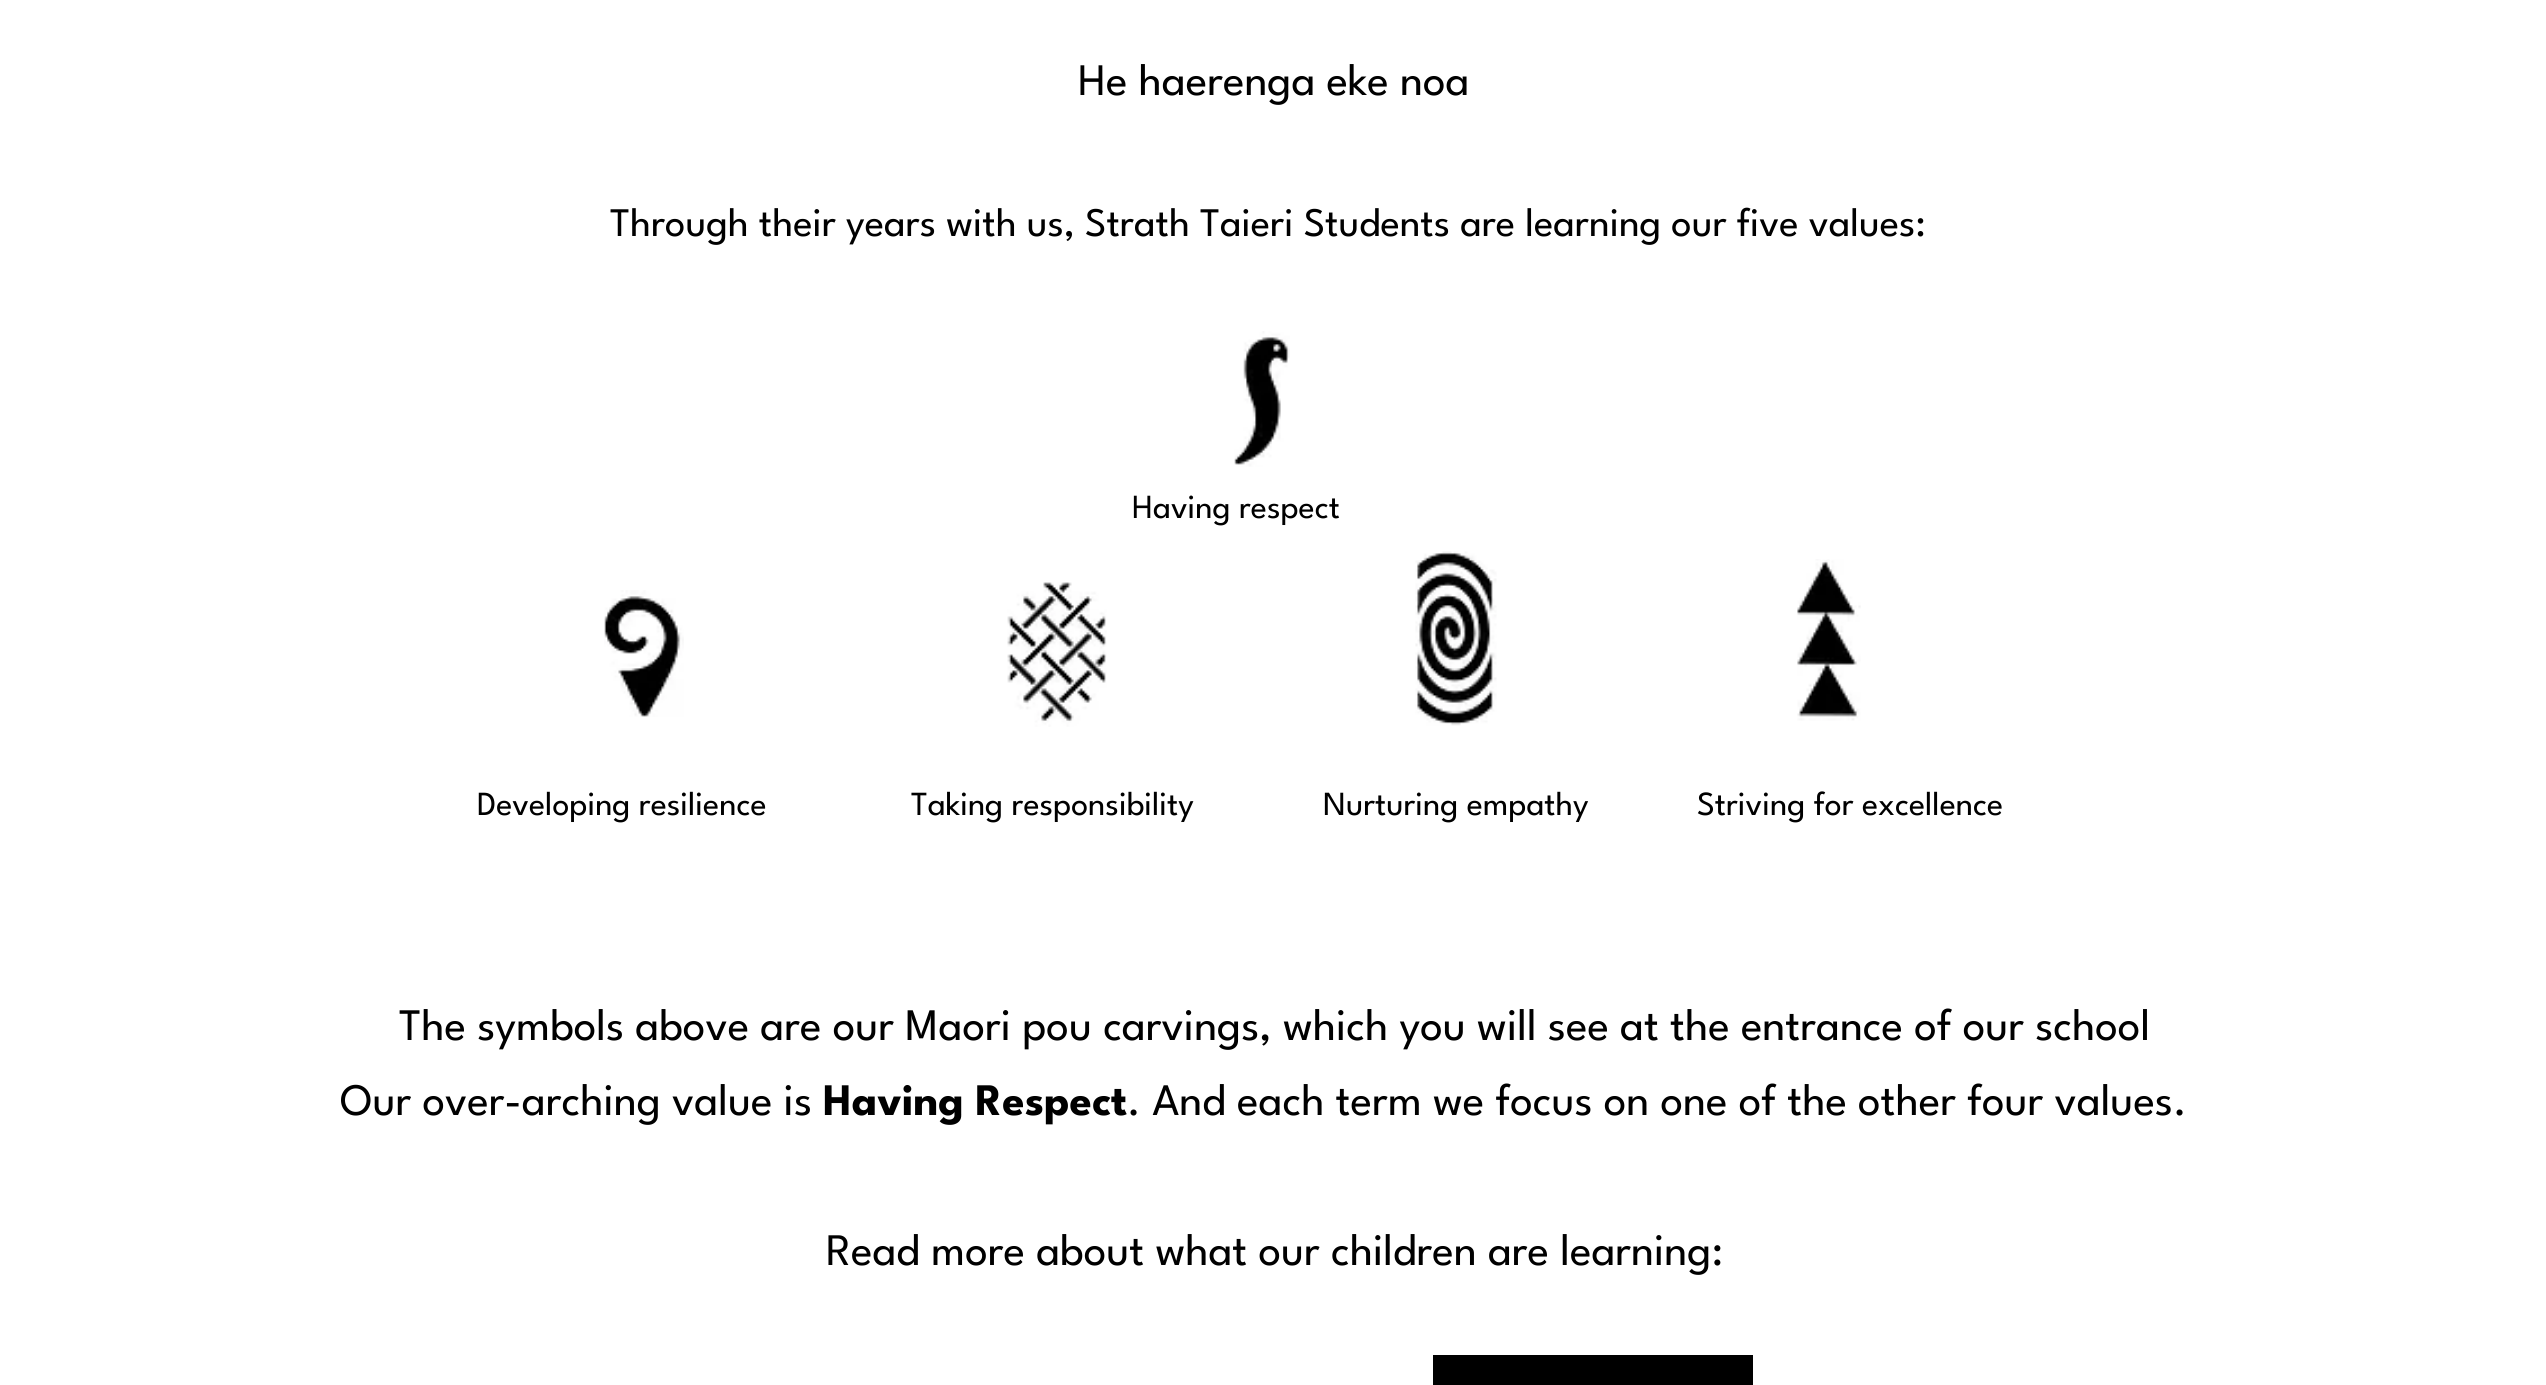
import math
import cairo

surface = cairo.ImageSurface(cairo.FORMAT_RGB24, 2546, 1385)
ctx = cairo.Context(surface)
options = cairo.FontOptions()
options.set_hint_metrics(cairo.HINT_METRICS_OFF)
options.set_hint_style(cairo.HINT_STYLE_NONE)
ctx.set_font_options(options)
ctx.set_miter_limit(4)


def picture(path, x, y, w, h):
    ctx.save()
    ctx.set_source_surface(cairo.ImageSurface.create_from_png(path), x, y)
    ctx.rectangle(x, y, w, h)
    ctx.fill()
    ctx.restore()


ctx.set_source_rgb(1, 1, 1)
ctx.paint()
ctx.select_font_face("League Spartan")
ctx.set_font_size(45)
ctx.set_source_rgb(0, 0, 0)
ctx.move_to(1078, 95)
ctx.show_text("He haerenga eke noa")
ctx.set_font_size(40.5)
ctx.move_to(610, 236)
ctx.show_text("Through their years with us, Strath Taieri Students are learning our five values:")
picture("img1.png", 1234, 331, 56, 136)
ctx.set_font_size(33.75)
ctx.move_to(1132, 518)
ctx.show_text("Having respect")
picture("img2.png", 604, 590, 80, 127)
picture("img3.png", 1007, 582, 100, 145)
picture("img4.png", 1415, 551, 82, 175)
picture("img5.png", 1797, 559, 64, 162)
ctx.move_to(477, 815)
ctx.show_text("Developing resilience")
ctx.move_to(911, 815)
ctx.show_text("Taking responsibility")
ctx.move_to(1323, 815)
ctx.show_text("Nurturing empathy")
ctx.move_to(1697, 815)
ctx.show_text("Striving for excellence")
ctx.set_font_size(45)
ctx.move_to(399, 1040)
ctx.show_text("The symbols above are our Maori pou carvings, which you will see at the entrance of our school")
ctx.move_to(340, 1115)
ctx.show_text("Our over-arching value is")
ctx.select_font_face("League Spartan", cairo.FONT_SLANT_NORMAL, cairo.FONT_WEIGHT_BOLD)
ctx.move_to(823, 1115)
ctx.show_text("Having Respect")
ctx.select_font_face("League Spartan")
ctx.move_to(1127, 1115)
ctx.show_text(". And each term we focus on one of the other four values.")
ctx.move_to(826, 1265)
ctx.show_text("Read more about what our children are learning:")
ctx.rectangle(1433, 1355, 320, 30)
ctx.fill()
surface.write_to_png("page.png")
